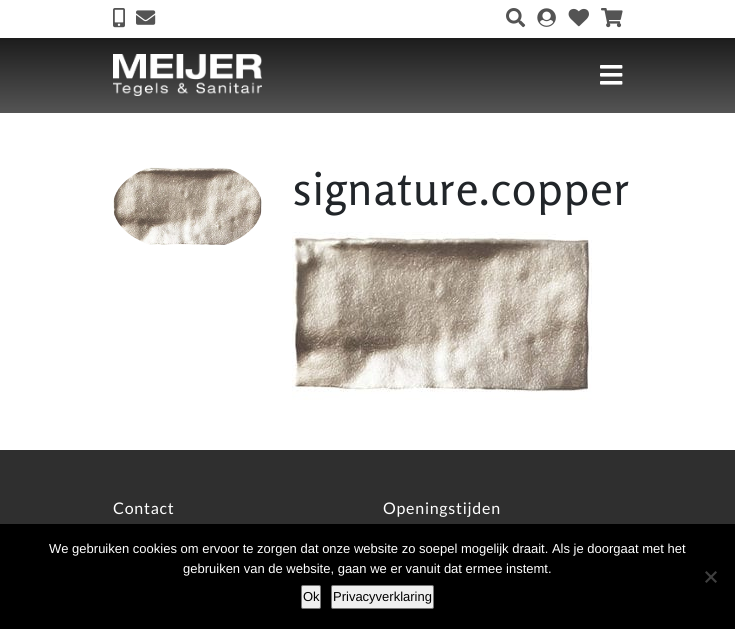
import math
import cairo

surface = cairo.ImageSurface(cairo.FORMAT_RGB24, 735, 629)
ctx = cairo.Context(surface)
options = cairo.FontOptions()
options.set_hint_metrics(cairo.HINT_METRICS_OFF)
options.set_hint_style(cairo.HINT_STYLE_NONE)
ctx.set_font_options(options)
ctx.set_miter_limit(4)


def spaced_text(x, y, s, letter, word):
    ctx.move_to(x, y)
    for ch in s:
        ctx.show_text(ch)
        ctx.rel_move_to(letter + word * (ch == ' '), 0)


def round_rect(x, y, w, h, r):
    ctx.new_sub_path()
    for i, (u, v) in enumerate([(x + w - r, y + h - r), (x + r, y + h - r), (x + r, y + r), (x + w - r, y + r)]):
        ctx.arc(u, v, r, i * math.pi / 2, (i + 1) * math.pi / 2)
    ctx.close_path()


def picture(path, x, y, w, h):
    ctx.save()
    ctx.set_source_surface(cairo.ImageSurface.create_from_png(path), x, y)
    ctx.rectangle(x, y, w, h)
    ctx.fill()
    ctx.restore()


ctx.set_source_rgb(1, 1, 1)
ctx.paint()
gradient = cairo.LinearGradient(368, 0, 368, 113)
gradient.add_color_stop_rgba(0, 0, 0, 0, 1)
gradient.add_color_stop_rgba(1, 0.329, 0.329, 0.329, 1)
ctx.set_source(gradient)
ctx.rectangle(0, 38, 735, 75)
ctx.fill()
picture("img1.png", 113, 8, 12, 20)
picture("img2.png", 136, 10, 20, 15)
picture("img3.png", 506, 8, 20, 20)
picture("img4.png", 537, 8, 19, 19)
picture("img5.png", 568, 8, 21, 19)
picture("img6.png", 601, 8, 22, 20)
picture("img7.png", 113, 54, 149, 42)
picture("img8.png", 600, 65, 23, 20)
picture("img9.png", 113, 167, 149, 78)
ctx.select_font_face("Rosario")
ctx.set_font_size(46)
ctx.set_source_rgb(0.129, 0.145, 0.161)
spaced_text(292, 205, "signature.copper", 0.75, 0)
picture("img10.png", 292, 232, 300, 168)
ctx.set_source_rgb(0.184, 0.184, 0.184)
ctx.rectangle(0, 450, 735, 74)
ctx.fill()
ctx.select_font_face("Lato")
ctx.set_font_size(16)
ctx.set_source_rgb(1, 1, 1)
spaced_text(113, 514, "Contact", 0.75, 0)
spaced_text(383, 514, "Openingstijden", 0.75, 0)
ctx.set_source_rgb(0, 0, 0)
ctx.rectangle(0, 524, 735, 105)
ctx.fill()
ctx.select_font_face("Liberation Sans")
ctx.set_font_size(13)
ctx.set_source_rgb(1, 1, 1)
ctx.move_to(49, 553)
ctx.show_text("We gebruiken cookies om ervoor te zorgen dat onze website zo soepel mogelijk draait. Als je doorgaat met het")
ctx.move_to(183, 573)
ctx.show_text("gebruiken van de website, gaan we er vanuit dat ermee instemt.")
ctx.set_source_rgb(0.251, 0.251, 0.251)
ctx.new_path()
ctx.move_to(715.5, 571)
ctx.line_to(717, 572.5)
ctx.line_to(706.5, 583)
ctx.line_to(705, 581.5)
ctx.close_path()
ctx.fill()
ctx.new_path()
ctx.move_to(705, 572.5)
ctx.line_to(706.5, 571)
ctx.line_to(717, 581.5)
ctx.line_to(715.5, 583)
ctx.close_path()
ctx.fill()
ctx.set_source_rgb(0.937, 0.937, 0.937)
round_rect(301.5, 585.5, 19, 23, 1.5)
ctx.fill_preserve()
ctx.set_source_rgb(0.463, 0.463, 0.463)
ctx.set_line_width(1)
ctx.stroke()
ctx.set_source_rgb(0, 0, 0)
ctx.move_to(303, 601)
ctx.show_text("Ok")
ctx.set_source_rgb(0.937, 0.937, 0.937)
round_rect(331.5, 585.5, 102, 23, 1.5)
ctx.fill_preserve()
ctx.set_source_rgb(0.463, 0.463, 0.463)
ctx.stroke()
ctx.set_source_rgb(0, 0, 0)
ctx.move_to(333, 601)
ctx.show_text("Privacyverklaring")
surface.write_to_png("page.png")
